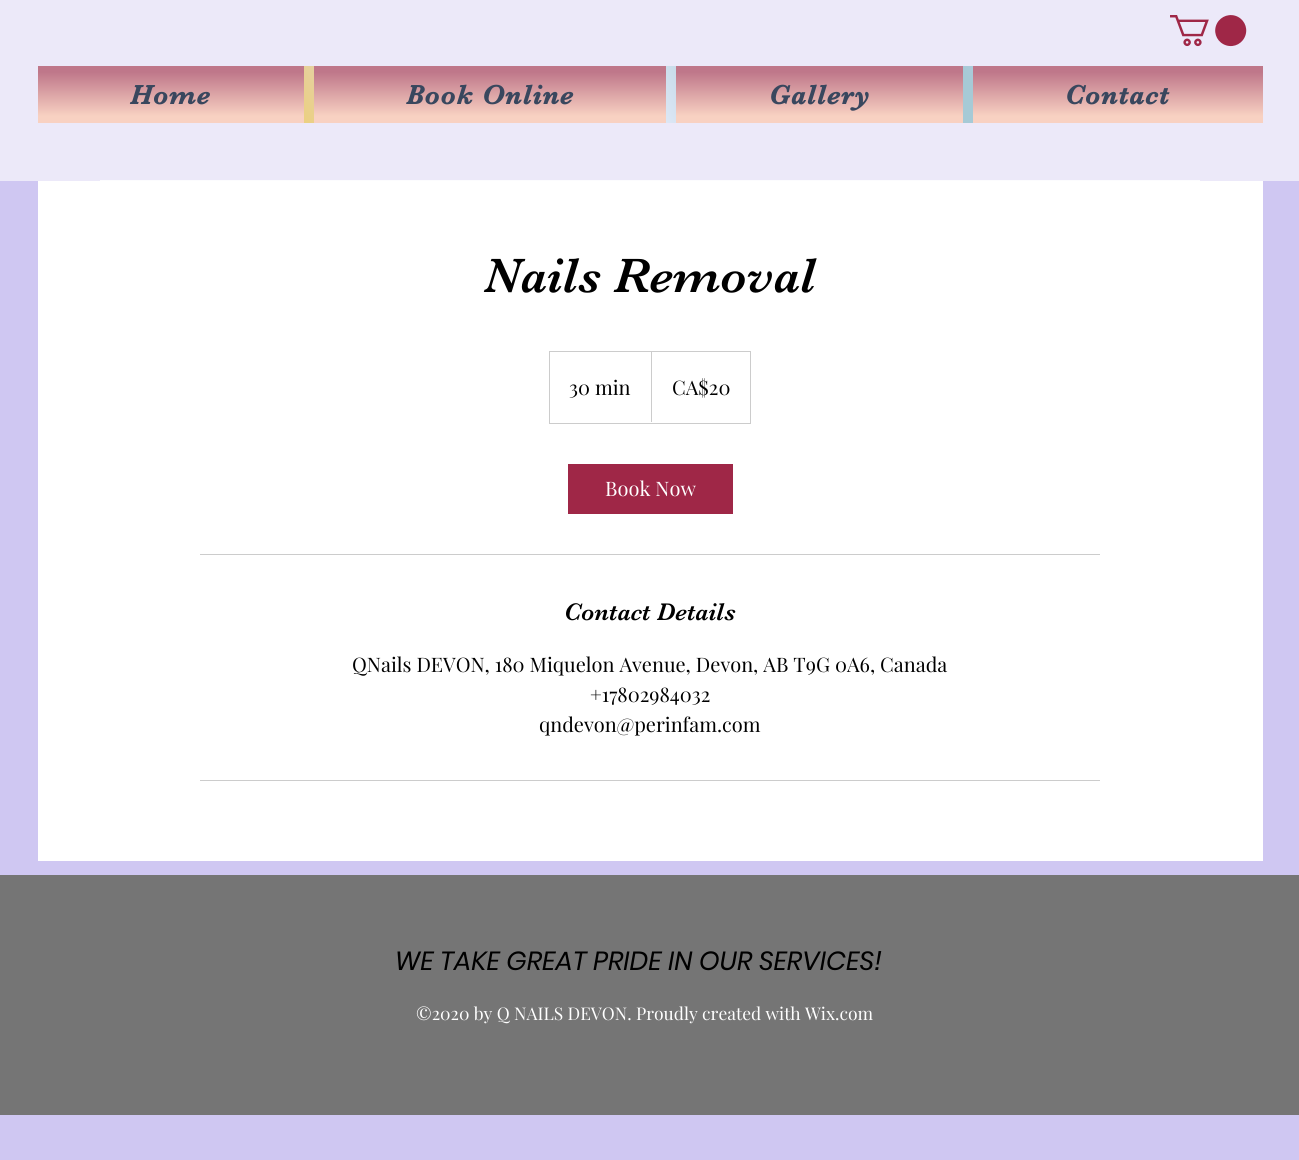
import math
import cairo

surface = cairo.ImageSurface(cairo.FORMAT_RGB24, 1299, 1160)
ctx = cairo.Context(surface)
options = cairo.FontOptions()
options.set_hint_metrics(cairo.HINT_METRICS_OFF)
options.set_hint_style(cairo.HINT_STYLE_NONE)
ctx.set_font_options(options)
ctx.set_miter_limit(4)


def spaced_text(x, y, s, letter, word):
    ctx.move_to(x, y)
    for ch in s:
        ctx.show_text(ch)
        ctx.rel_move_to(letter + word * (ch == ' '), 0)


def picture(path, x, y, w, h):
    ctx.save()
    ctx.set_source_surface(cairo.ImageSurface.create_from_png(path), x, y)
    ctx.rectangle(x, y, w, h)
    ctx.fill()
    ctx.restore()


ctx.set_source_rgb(0.812, 0.78, 0.949)
ctx.paint()
ctx.set_source_rgb(0.925, 0.914, 0.976)
ctx.rectangle(0, 0, 1299, 181)
ctx.fill()
picture("img1.png", 1170, 15, 77, 32)
gradient = cairo.LinearGradient(197, 378, 1103, -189)
gradient.add_color_stop_rgba(0, 0.988, 0.435, 0.235, 1)
gradient.add_color_stop_rgba(0.13, 0.973, 0.812, 0.235, 1)
gradient.add_color_stop_rgba(0.36, 0.831, 0.824, 0.996, 1)
gradient.add_color_stop_rgba(0.48, 0.91, 0.929, 0.988, 1)
gradient.add_color_stop_rgba(0.59, 0.651, 0.792, 0.839, 1)
gradient.add_color_stop_rgba(0.76, 0.651, 0.792, 0.839, 1)
gradient.add_color_stop_rgba(0.86, 0.831, 0.824, 0.996, 1)
gradient.add_color_stop_rgba(0.99, 0.651, 0.635, 0.906, 1)
ctx.set_source(gradient)
ctx.rectangle(304, 66, 669, 57)
ctx.fill()
gradient = cairo.LinearGradient(171, 66, 171, 123)
gradient.add_color_stop_rgba(0.11, 0.749, 0.467, 0.541, 1)
gradient.add_color_stop_rgba(0.88, 0.973, 0.82, 0.761, 1)
ctx.set_source(gradient)
ctx.rectangle(38, 66, 266, 57)
ctx.fill()
ctx.select_font_face("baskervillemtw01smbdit", cairo.FONT_SLANT_NORMAL, cairo.FONT_WEIGHT_BOLD)
ctx.set_font_size(27.5)
ctx.set_source_rgb(0.224, 0.278, 0.369)
spaced_text(130, 104, "Home", 1.4, 0)
gradient = cairo.LinearGradient(490, 66, 490, 123)
gradient.add_color_stop_rgba(0.11, 0.749, 0.467, 0.541, 1)
gradient.add_color_stop_rgba(0.88, 0.973, 0.82, 0.761, 1)
ctx.set_source(gradient)
ctx.rectangle(314, 66, 352, 57)
ctx.fill()
ctx.set_source_rgb(0.224, 0.278, 0.369)
spaced_text(406, 104, "Book Online", 1.4, 0)
gradient = cairo.LinearGradient(819, 66, 819, 123)
gradient.add_color_stop_rgba(0.11, 0.749, 0.467, 0.541, 1)
gradient.add_color_stop_rgba(0.88, 0.973, 0.82, 0.761, 1)
ctx.set_source(gradient)
ctx.rectangle(676, 66, 287, 57)
ctx.fill()
ctx.set_source_rgb(0.224, 0.278, 0.369)
spaced_text(769, 104, "Gallery", 1.4, 0)
gradient = cairo.LinearGradient(1118, 66, 1118, 123)
gradient.add_color_stop_rgba(0.11, 0.749, 0.467, 0.541, 1)
gradient.add_color_stop_rgba(0.88, 0.973, 0.82, 0.761, 1)
ctx.set_source(gradient)
ctx.rectangle(973, 66, 290, 57)
ctx.fill()
ctx.set_source_rgb(0.224, 0.278, 0.369)
spaced_text(1065, 104, "Contact", 1.4, 0)
ctx.set_source_rgb(0.988, 0.988, 0.996)
ctx.rectangle(100, 180, 1100, 1)
ctx.fill()
ctx.set_source_rgb(1, 1, 1)
ctx.rectangle(38, 181, 1225, 680)
ctx.fill()
ctx.select_font_face("baskervillemtw01smbdit")
ctx.set_font_size(50)
ctx.set_source_rgb(0, 0, 0)
ctx.move_to(484, 292)
ctx.show_text("Nails Removal")
ctx.rectangle(549.5, 351.5, 201, 72)
ctx.set_source_rgb(0.8, 0.8, 0.8)
ctx.set_line_width(1)
ctx.stroke()
ctx.select_font_face("Playfair Display")
ctx.set_font_size(20)
ctx.set_source_rgb(0, 0, 0)
ctx.move_to(569, 395)
ctx.show_text("30 min")
ctx.set_source_rgb(0.8, 0.8, 0.8)
ctx.new_path()
ctx.move_to(651, 422)
ctx.line_to(651, 351)
ctx.line_to(652, 352)
ctx.line_to(652, 422)
ctx.close_path()
ctx.fill()
ctx.set_source_rgb(0, 0, 0)
ctx.move_to(672, 395)
ctx.show_text("CA$20")
ctx.set_source_rgb(0.624, 0.153, 0.278)
ctx.rectangle(568, 464, 165, 50)
ctx.fill()
ctx.set_source_rgb(1, 1, 1)
ctx.move_to(605, 496)
ctx.show_text("Book Now")
ctx.set_source_rgb(0.8, 0.8, 0.8)
ctx.rectangle(200, 554, 900, 1)
ctx.fill()
ctx.select_font_face("baskervillemtw01smbdit")
ctx.set_font_size(25)
ctx.set_source_rgb(0, 0, 0)
ctx.move_to(564, 620)
ctx.show_text("Contact Details")
ctx.select_font_face("Playfair Display")
ctx.set_font_size(20)
ctx.move_to(352, 672)
ctx.show_text("QNails DEVON, 180 Miquelon Avenue, Devon, AB T9G 0A6, Canada")
ctx.move_to(590, 702)
ctx.show_text("+17802984032")
ctx.move_to(539, 732)
ctx.show_text("qndevon@perinfam.com")
ctx.set_source_rgb(0.8, 0.8, 0.8)
ctx.rectangle(200, 780, 900, 1)
ctx.fill()
ctx.set_source_rgb(0.459, 0.459, 0.459)
ctx.rectangle(0, 875, 1299, 240)
ctx.fill()
ctx.select_font_face("Poppins", cairo.FONT_SLANT_ITALIC)
ctx.set_font_size(26.25)
ctx.set_source_rgb(0, 0, 0)
ctx.move_to(395, 970)
ctx.show_text("WE TAKE GREAT PRIDE IN OUR SERVICES!")
ctx.select_font_face("Playfair Display")
ctx.set_font_size(17.5)
ctx.set_source_rgb(1, 1, 1)
ctx.move_to(416, 1020)
ctx.show_text("©2020 by Q NAILS DEVON. Proudly created with Wix.com")
surface.write_to_png("page.png")
